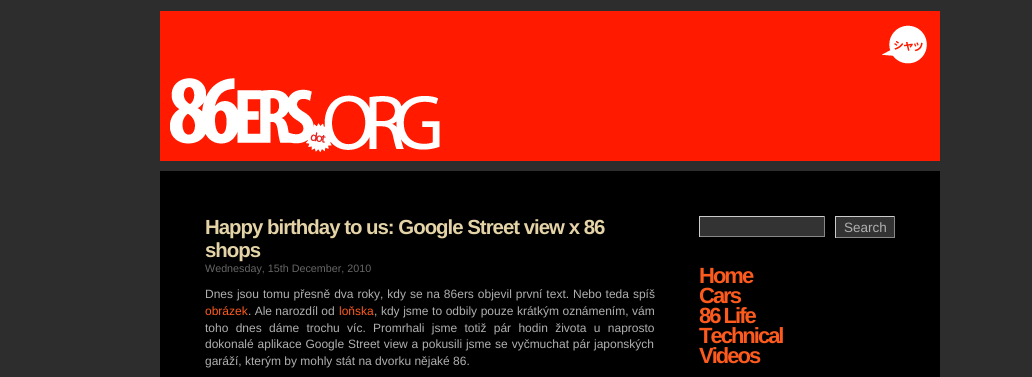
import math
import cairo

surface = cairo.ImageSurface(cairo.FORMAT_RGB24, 1032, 377)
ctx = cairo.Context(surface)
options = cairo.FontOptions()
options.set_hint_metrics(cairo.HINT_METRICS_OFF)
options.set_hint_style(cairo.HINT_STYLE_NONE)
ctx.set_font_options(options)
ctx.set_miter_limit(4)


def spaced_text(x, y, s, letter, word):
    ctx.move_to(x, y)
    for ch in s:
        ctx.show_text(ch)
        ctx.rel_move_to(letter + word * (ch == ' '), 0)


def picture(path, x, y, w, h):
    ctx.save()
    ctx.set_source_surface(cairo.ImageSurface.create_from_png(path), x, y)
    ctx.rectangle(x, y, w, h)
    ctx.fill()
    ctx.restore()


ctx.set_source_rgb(0.176, 0.176, 0.176)
ctx.paint()
picture("img1.png", 160, 11, 780, 150)
ctx.set_source_rgb(0, 0, 0)
ctx.rectangle(160, 171, 780, 206)
ctx.fill()
ctx.select_font_face("Liberation Sans", cairo.FONT_SLANT_NORMAL, cairo.FONT_WEIGHT_BOLD)
ctx.set_font_size(20.4)
ctx.set_source_rgb(0.894, 0.827, 0.651)
spaced_text(205, 234, "Happy birthday to us: Google Street view x 86", -1, 0)
spaced_text(205, 257, "shops", -1, 0)
ctx.select_font_face("Liberation Sans")
ctx.set_font_size(10.75)
ctx.set_source_rgb(0.4, 0.4, 0.4)
ctx.move_to(205, 272)
ctx.show_text("Wednesday, 15th December, 2010")
ctx.set_font_size(12)
ctx.set_source_rgb(0.69, 0.69, 0.69)
spaced_text(205, 298, "Dnes jsou tomu přesně dva roky, kdy se na 86ers objevil první text. Nebo teda spíš", 0, 0.6)
ctx.set_source_rgb(0.992, 0.353, 0.118)
ctx.move_to(205, 315)
ctx.show_text("obrázek")
ctx.set_source_rgb(0.69, 0.69, 0.69)
ctx.move_to(248, 315)
ctx.show_text(". Ale narozdíl od")
ctx.set_source_rgb(0.992, 0.353, 0.118)
ctx.move_to(339, 315)
ctx.show_text("loňska")
ctx.set_source_rgb(0.69, 0.69, 0.69)
spaced_text(374, 315, ", kdy jsme to odbily pouze krátkým oznámením, vám", 0, 0.25)
spaced_text(205, 332, "toho dnes dáme trochu víc. Promrhali jsme totiž pár hodin života u naprosto", 0, 4)
spaced_text(205, 348, "dokonalé aplikace Google Street view a pokusili jsme se vyčmuchat pár japonských", 0, 0.5)
ctx.move_to(205, 365)
ctx.show_text("garáží, kterým by mohly stát na dvorku nějaké 86.")
ctx.set_source_rgb(0.2, 0.2, 0.2)
ctx.rectangle(700, 217, 124, 19)
ctx.fill()
ctx.set_source_rgb(0.8, 0.8, 0.8)
ctx.rectangle(699, 216, 126, 1)
ctx.fill()
ctx.set_source_rgb(0.533, 0.533, 0.533)
ctx.rectangle(824, 216, 1, 21)
ctx.fill()
ctx.rectangle(699, 236, 126, 1)
ctx.fill()
ctx.set_source_rgb(0.8, 0.8, 0.8)
ctx.rectangle(699, 216, 1, 21)
ctx.fill()
ctx.set_source_rgb(0.2, 0.2, 0.2)
ctx.rectangle(836, 217, 58, 20)
ctx.fill()
ctx.set_source_rgb(0.8, 0.8, 0.8)
ctx.rectangle(835, 216, 60, 1)
ctx.fill()
ctx.set_source_rgb(0.533, 0.533, 0.533)
ctx.rectangle(894, 216, 1, 22)
ctx.fill()
ctx.rectangle(835, 237, 60, 1)
ctx.fill()
ctx.set_source_rgb(0.8, 0.8, 0.8)
ctx.rectangle(835, 216, 1, 22)
ctx.fill()
ctx.set_font_size(13.5)
ctx.set_source_rgb(0.69, 0.69, 0.69)
ctx.move_to(844, 232)
ctx.show_text("Search")
ctx.select_font_face("Liberation Sans", cairo.FONT_SLANT_NORMAL, cairo.FONT_WEIGHT_BOLD)
ctx.set_font_size(22)
ctx.set_source_rgb(0.992, 0.353, 0.118)
spaced_text(699, 283, "Home", -2, 0)
spaced_text(699, 303, "Cars", -2, 0)
spaced_text(699, 323, "86 Life", -2, 0)
spaced_text(699, 343, "Technical", -2, 0)
spaced_text(699, 363, "Videos", -2, 0)
surface.write_to_png("page.png")
